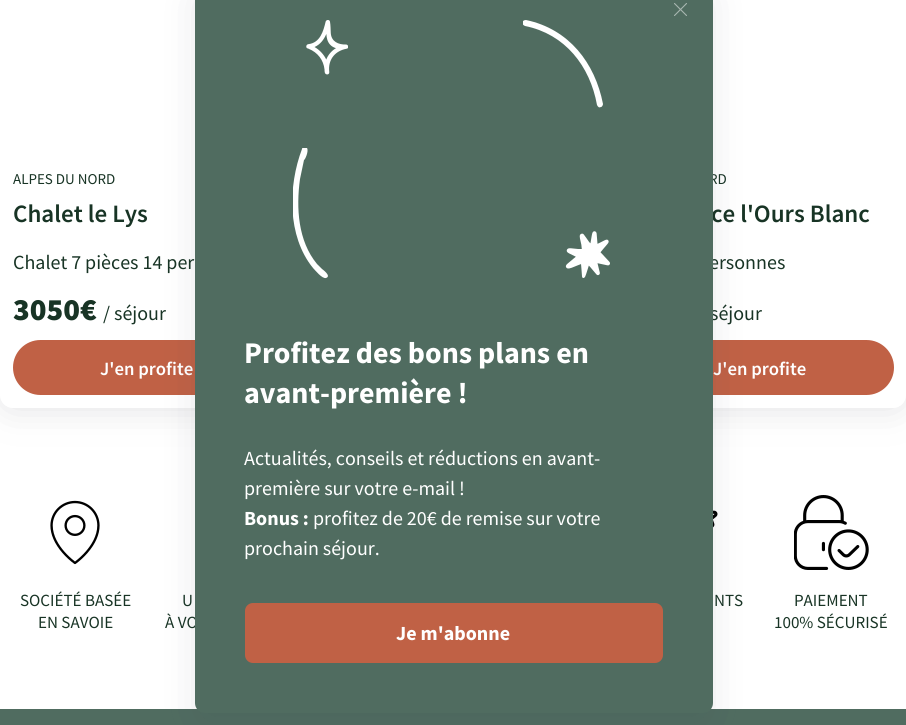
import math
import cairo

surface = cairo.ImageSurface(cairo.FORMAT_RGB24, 906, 725)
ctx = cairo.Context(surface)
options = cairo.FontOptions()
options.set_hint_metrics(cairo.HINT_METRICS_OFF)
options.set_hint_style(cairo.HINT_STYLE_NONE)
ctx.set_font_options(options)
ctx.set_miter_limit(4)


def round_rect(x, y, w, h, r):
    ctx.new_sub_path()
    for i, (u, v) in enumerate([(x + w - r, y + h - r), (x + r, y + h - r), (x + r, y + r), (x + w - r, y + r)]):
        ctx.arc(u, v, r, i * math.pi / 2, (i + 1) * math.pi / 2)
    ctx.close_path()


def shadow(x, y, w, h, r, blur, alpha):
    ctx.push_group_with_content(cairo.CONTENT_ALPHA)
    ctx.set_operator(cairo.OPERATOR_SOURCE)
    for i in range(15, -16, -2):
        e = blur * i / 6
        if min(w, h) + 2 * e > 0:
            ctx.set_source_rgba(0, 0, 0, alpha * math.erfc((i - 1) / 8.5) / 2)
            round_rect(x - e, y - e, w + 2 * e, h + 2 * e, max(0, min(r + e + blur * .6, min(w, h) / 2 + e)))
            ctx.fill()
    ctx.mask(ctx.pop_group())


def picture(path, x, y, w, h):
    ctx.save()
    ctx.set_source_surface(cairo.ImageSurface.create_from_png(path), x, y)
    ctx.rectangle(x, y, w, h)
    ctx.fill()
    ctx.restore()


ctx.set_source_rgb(1, 1, 1)
ctx.paint()
ctx.save()
ctx.set_fill_rule(cairo.FILL_RULE_EVEN_ODD)
ctx.new_path()
ctx.move_to(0, 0)
ctx.line_to(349, 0)
ctx.line_to(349, 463)
ctx.line_to(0, 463)
ctx.close_path()
ctx.move_to(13, -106)
ctx.line_to(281, -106)
ctx.curve_to(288, -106, 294, -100, 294, -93)
ctx.line_to(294, 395)
ctx.curve_to(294, 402, 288, 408, 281, 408)
ctx.line_to(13, 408)
ctx.curve_to(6, 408, 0, 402, 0, 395)
ctx.line_to(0, -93)
ctx.curve_to(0, -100, 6, -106, 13, -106)
ctx.close_path()
ctx.clip()
ctx.set_source_rgb(0.392, 0.392, 0.435)
shadow(0, -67, 294, 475, 13, 18, 0.2)
ctx.restore()
ctx.select_font_face("Source Sans Pro")
ctx.set_font_size(15)
ctx.set_source_rgb(0.094, 0.204, 0.145)
ctx.move_to(13, 184)
ctx.show_text("ALPES DU NORD")
ctx.select_font_face("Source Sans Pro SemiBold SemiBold")
ctx.set_font_size(25)
ctx.move_to(13, 222)
ctx.show_text("Chalet le Lys")
ctx.select_font_face("Source Sans Pro")
ctx.set_font_size(20)
ctx.move_to(13, 269)
ctx.show_text("Chalet 7 pièces 14 per")
ctx.select_font_face("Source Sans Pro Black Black")
ctx.set_font_size(31)
ctx.move_to(13, 320)
ctx.show_text("3050€")
ctx.select_font_face("Source Sans Pro")
ctx.set_font_size(20)
ctx.move_to(103, 320)
ctx.show_text("/ séjour")
ctx.set_source_rgb(0.753, 0.38, 0.271)
round_rect(14.5, 341.5, 265, 52, 26)
ctx.fill_preserve()
ctx.set_line_width(3)
ctx.stroke()
ctx.select_font_face("Source Sans Pro SemiBold SemiBold")
ctx.set_font_size(18.75)
ctx.set_source_rgb(1, 1, 1)
ctx.move_to(100, 375)
ctx.show_text("J'en profite")
ctx.save()
ctx.set_fill_rule(cairo.FILL_RULE_EVEN_ODD)
ctx.new_path()
ctx.move_to(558, 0)
ctx.line_to(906, 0)
ctx.line_to(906, 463)
ctx.line_to(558, 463)
ctx.close_path()
ctx.move_to(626, -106)
ctx.line_to(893, -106)
ctx.curve_to(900, -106, 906, -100, 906, -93)
ctx.line_to(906, 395)
ctx.curve_to(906, 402, 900, 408, 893, 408)
ctx.line_to(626, 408)
ctx.curve_to(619, 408, 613, 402, 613, 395)
ctx.line_to(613, -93)
ctx.curve_to(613, -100, 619, -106, 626, -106)
ctx.close_path()
ctx.clip()
ctx.set_source_rgb(0.392, 0.392, 0.435)
shadow(613, -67, 293, 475, 13, 18, 0.2)
ctx.restore()
ctx.select_font_face("Source Sans Pro")
ctx.set_font_size(15)
ctx.set_source_rgb(0.094, 0.204, 0.145)
ctx.move_to(709, 184)
ctx.show_text("RD")
ctx.select_font_face("Source Sans Pro SemiBold SemiBold")
ctx.set_font_size(25)
ctx.move_to(711, 222)
ctx.show_text("ce l'Ours Blanc")
ctx.select_font_face("Source Sans Pro")
ctx.set_font_size(20)
ctx.move_to(709, 269)
ctx.show_text("ersonnes")
ctx.move_to(710, 320)
ctx.show_text("séjour")
ctx.set_source_rgb(0.753, 0.38, 0.271)
round_rect(626.5, 341.5, 266, 52, 26)
ctx.fill_preserve()
ctx.stroke()
ctx.select_font_face("Source Sans Pro SemiBold SemiBold")
ctx.set_font_size(18.75)
ctx.set_source_rgb(1, 1, 1)
ctx.move_to(713, 375)
ctx.show_text("J'en profite")
picture("img1.png", 50, 500, 50, 65)
ctx.select_font_face("Source Sans Pro")
ctx.set_font_size(17)
ctx.set_source_rgb(0.094, 0.204, 0.145)
ctx.move_to(20, 606)
ctx.show_text("SOCIÉTÉ BASÉE")
ctx.move_to(38, 628)
ctx.show_text("EN SAVOIE")
ctx.move_to(182, 606)
ctx.show_text("U")
ctx.move_to(165, 628)
ctx.show_text("À VO")
picture("img2.png", 713, 510, 5, 18)
ctx.move_to(714, 606)
ctx.show_text("NTS")
picture("img3.png", 794, 495, 75, 75)
ctx.move_to(794, 606)
ctx.show_text("PAIEMENT")
ctx.move_to(774, 628)
ctx.show_text("100% SÉCURISÉ")
ctx.set_source_rgb(0.314, 0.424, 0.376)
ctx.rectangle(0, 709, 906, 16)
ctx.fill()
ctx.set_source_rgb(0.212, 0.239, 0.302)
shadow(201, -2, 505, 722, 4, 20, 0.15)
ctx.set_source_rgb(0.314, 0.424, 0.376)
round_rect(195, -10, 518, 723, 10)
ctx.fill()
ctx.new_path()
ctx.move_to(674.5, 3.5)
ctx.line_to(686.5, 15.5)
ctx.move_to(686.5, 3.5)
ctx.line_to(674.5, 15.5)
ctx.set_source_rgb(0.659, 0.714, 0.69)
ctx.set_line_width(1.1)
ctx.set_line_cap(cairo.LINE_CAP_ROUND)
ctx.set_line_join(cairo.LINE_JOIN_ROUND)
ctx.stroke()
picture("img4.png", 565, 231, 45, 47)
ctx.save()
ctx.rectangle(523, 20, 81, 88)
ctx.clip()
ctx.set_source_rgb(1, 1, 1)
ctx.set_fill_rule(cairo.FILL_RULE_EVEN_ODD)
ctx.new_path()
ctx.move_to(525, 26)
ctx.curve_to(565, 34, 590, 66, 597, 105)
ctx.curve_to(598, 107, 599, 108, 601, 107)
ctx.curve_to(602, 107, 603, 105, 603, 104)
ctx.curve_to(595, 63, 569, 29, 526, 20)
ctx.curve_to(524, 20, 523, 21, 522, 22)
ctx.curve_to(522, 24, 523, 25, 525, 26)
ctx.close_path()
ctx.fill()
ctx.restore()
ctx.save()
ctx.rectangle(293, 148, 35, 131)
ctx.clip()
ctx.set_source_rgb(1, 1, 1)
ctx.set_fill_rule(cairo.FILL_RULE_EVEN_ODD)
ctx.new_path()
ctx.move_to(302, 149)
ctx.curve_to(288, 186, 287, 236, 313, 268)
ctx.curve_to(315, 270, 322, 279, 326, 278)
ctx.curve_to(332, 276, 322, 269, 322, 269)
ctx.line_to(317, 264)
ctx.curve_to(298, 241, 296, 208, 300, 179)
ctx.line_to(304, 160)
ctx.curve_to(305, 160, 309, 151, 307, 148)
ctx.curve_to(305, 147, 302, 147, 302, 149)
ctx.close_path()
ctx.fill()
ctx.restore()
picture("img5.png", 306, 20, 42, 55)
ctx.select_font_face("Source Sans Pro", cairo.FONT_SLANT_NORMAL, cairo.FONT_WEIGHT_BOLD)
ctx.set_font_size(30)
ctx.set_source_rgb(1, 1, 1)
ctx.move_to(244, 363)
ctx.show_text("Profitez des bons plans en")
ctx.move_to(244, 403)
ctx.show_text("avant-première !")
ctx.select_font_face("Source Sans Pro")
ctx.set_font_size(20)
ctx.move_to(244, 465)
ctx.show_text("Actualités, conseils et réductions en avant-")
ctx.move_to(244, 495)
ctx.show_text("première sur votre e-mail !")
ctx.select_font_face("Source Sans Pro", cairo.FONT_SLANT_NORMAL, cairo.FONT_WEIGHT_BOLD)
ctx.move_to(244, 525)
ctx.show_text("Bonus :")
ctx.select_font_face("Source Sans Pro")
ctx.move_to(313, 525)
ctx.show_text("profitez de 20€ de remise sur votre")
ctx.move_to(244, 555)
ctx.show_text("prochain séjour.")
ctx.set_source_rgb(0.753, 0.38, 0.271)
round_rect(245, 603, 418, 60, 8)
ctx.fill()
ctx.select_font_face("Source Sans Pro", cairo.FONT_SLANT_NORMAL, cairo.FONT_WEIGHT_BOLD)
ctx.set_source_rgb(1, 1, 1)
ctx.move_to(396, 640)
ctx.show_text("Je m'abonne")
surface.write_to_png("page.png")
